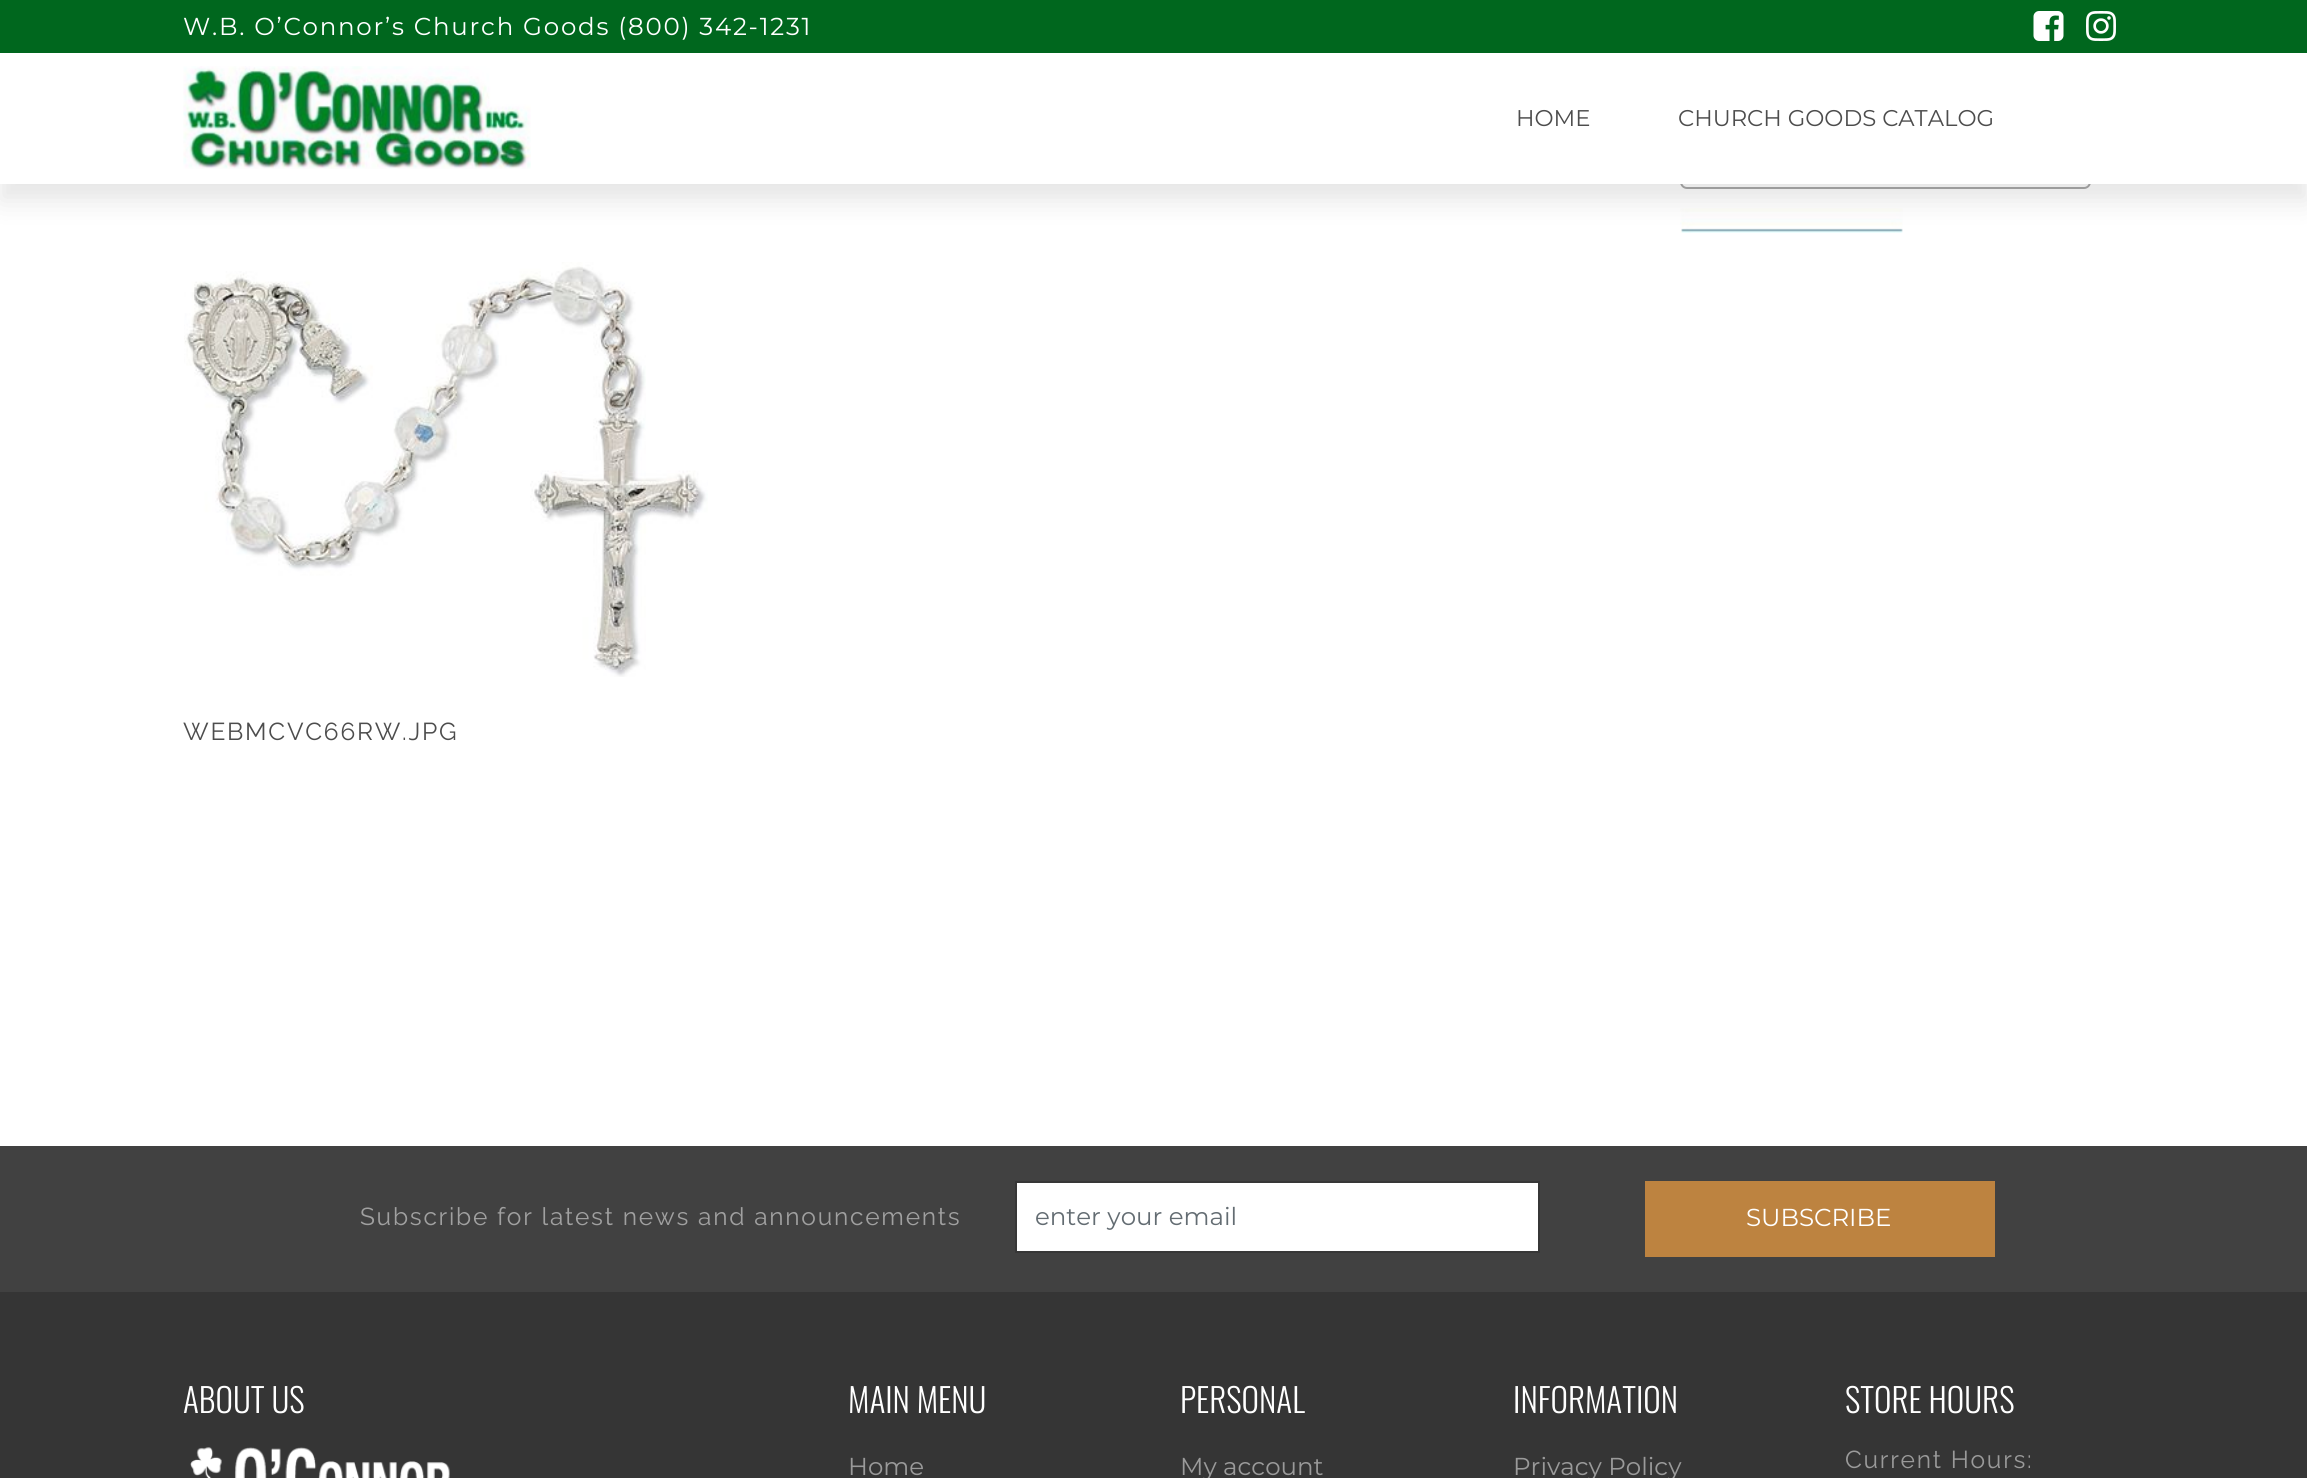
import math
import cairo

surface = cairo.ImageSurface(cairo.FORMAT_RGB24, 2307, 1478)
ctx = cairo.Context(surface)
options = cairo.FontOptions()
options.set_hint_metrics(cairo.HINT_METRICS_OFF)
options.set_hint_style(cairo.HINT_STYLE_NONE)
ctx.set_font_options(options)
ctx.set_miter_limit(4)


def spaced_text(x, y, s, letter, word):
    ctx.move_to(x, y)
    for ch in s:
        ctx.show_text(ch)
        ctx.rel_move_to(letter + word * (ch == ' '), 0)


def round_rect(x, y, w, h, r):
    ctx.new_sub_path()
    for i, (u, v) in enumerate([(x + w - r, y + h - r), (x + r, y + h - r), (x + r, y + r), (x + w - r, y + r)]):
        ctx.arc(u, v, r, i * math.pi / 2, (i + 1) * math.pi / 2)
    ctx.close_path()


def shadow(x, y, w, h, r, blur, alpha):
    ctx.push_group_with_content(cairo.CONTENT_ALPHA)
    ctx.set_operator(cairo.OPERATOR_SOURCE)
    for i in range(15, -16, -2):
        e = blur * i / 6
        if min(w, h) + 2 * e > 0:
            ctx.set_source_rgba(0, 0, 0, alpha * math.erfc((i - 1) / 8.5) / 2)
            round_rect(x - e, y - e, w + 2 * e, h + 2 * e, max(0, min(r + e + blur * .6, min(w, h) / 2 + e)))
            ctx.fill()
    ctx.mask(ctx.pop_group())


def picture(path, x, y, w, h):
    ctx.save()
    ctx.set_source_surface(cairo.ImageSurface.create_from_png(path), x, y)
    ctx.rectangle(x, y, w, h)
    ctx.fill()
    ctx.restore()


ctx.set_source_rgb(1, 1, 1)
ctx.paint()
ctx.set_source_rgb(0, 0.404, 0.118)
ctx.rectangle(0, 0, 2307, 53)
ctx.fill()
ctx.select_font_face("Montserrat Thin")
ctx.set_font_size(24.5)
ctx.set_source_rgb(1, 1, 1)
spaced_text(183, 35, "W.B. O’Connor’s Church Goods (800) 342-1231", 1.75, 0)
picture("img1.png", 2033, 11, 31, 30)
picture("img2.png", 2086, 11, 30, 30)
picture("img4.png", 1680, 208, 223, 25)
round_rect(1681, 141, 409, 47, 6)
ctx.set_source_rgb(0.667, 0.667, 0.667)
ctx.stroke()
ctx.set_source_rgb(0, 0, 0)
shadow(0, 70, 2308, 131, 0, 13, 0.1)
ctx.set_source_rgb(1, 1, 1)
ctx.rectangle(0, 53, 2307, 131)
ctx.fill()
picture("img3.png", 183, 66, 348, 103)
ctx.set_font_size(22.75)
ctx.set_source_rgb(0.302, 0.302, 0.302)
ctx.move_to(1516, 126)
ctx.show_text("HOME")
ctx.move_to(1678, 126)
ctx.show_text("CHURCH GOODS CATALOG")
picture("img5.png", 184, 262, 524, 415)
ctx.select_font_face("Raleway")
ctx.set_font_size(24.5)
spaced_text(183, 740, "WEBMCVC66RW.JPG", 1.75, 0)
ctx.set_source_rgb(0.208, 0.208, 0.208)
ctx.rectangle(0, 1292, 2307, 186)
ctx.fill()
ctx.set_source_rgb(0.255, 0.255, 0.255)
ctx.rectangle(0, 1146, 2307, 146)
ctx.fill()
ctx.set_source_rgb(0.627, 0.627, 0.627)
spaced_text(360, 1225, "Subscribe for latest news and announcements", 1.75, 0)
ctx.set_source_rgb(1, 1, 1)
ctx.rectangle(1016, 1182, 523, 70)
ctx.fill_preserve()
ctx.set_source_rgb(0.216, 0.216, 0.216)
ctx.stroke()
ctx.select_font_face("Montserrat Thin")
ctx.set_source_rgb(0.388, 0.424, 0.447)
ctx.move_to(1035, 1225)
ctx.show_text("enter your email")
ctx.set_source_rgb(0.741, 0.514, 0.251)
ctx.rectangle(1645, 1181, 350, 76)
ctx.fill()
ctx.set_source_rgb(1, 1, 1)
ctx.move_to(1746, 1226)
ctx.show_text("SUBSCRIBE")
ctx.select_font_face("Oswald Light")
ctx.set_font_size(33.25)
ctx.move_to(183, 1413)
ctx.show_text("ABOUT US")
picture("img6.png", 190, 1447, 260, 31)
ctx.move_to(848, 1413)
ctx.show_text("MAIN MENU")
ctx.select_font_face("Montserrat Thin")
ctx.set_font_size(24.5)
ctx.set_source_rgb(0.604, 0.604, 0.604)
ctx.move_to(848, 1475)
ctx.show_text("Home")
ctx.select_font_face("Oswald Light")
ctx.set_font_size(33.25)
ctx.set_source_rgb(1, 1, 1)
ctx.move_to(1180, 1413)
ctx.show_text("PERSONAL")
ctx.select_font_face("Montserrat Thin")
ctx.set_font_size(24.5)
ctx.set_source_rgb(0.604, 0.604, 0.604)
ctx.move_to(1180, 1475)
ctx.show_text("My account")
ctx.select_font_face("Oswald Light")
ctx.set_font_size(33.25)
ctx.set_source_rgb(1, 1, 1)
ctx.move_to(1513, 1413)
ctx.show_text("INFORMATION")
ctx.select_font_face("Montserrat Thin")
ctx.set_font_size(24.5)
ctx.set_source_rgb(0.604, 0.604, 0.604)
ctx.move_to(1513, 1475)
ctx.show_text("Privacy Policy")
ctx.select_font_face("Oswald Light")
ctx.set_font_size(33.25)
ctx.set_source_rgb(1, 1, 1)
ctx.move_to(1845, 1413)
ctx.show_text("STORE HOURS")
ctx.select_font_face("Raleway")
ctx.set_font_size(24.5)
ctx.set_source_rgb(0.604, 0.604, 0.604)
spaced_text(1845, 1468, "Current Hours:", 1.75, 0)
surface.write_to_png("page.png")
